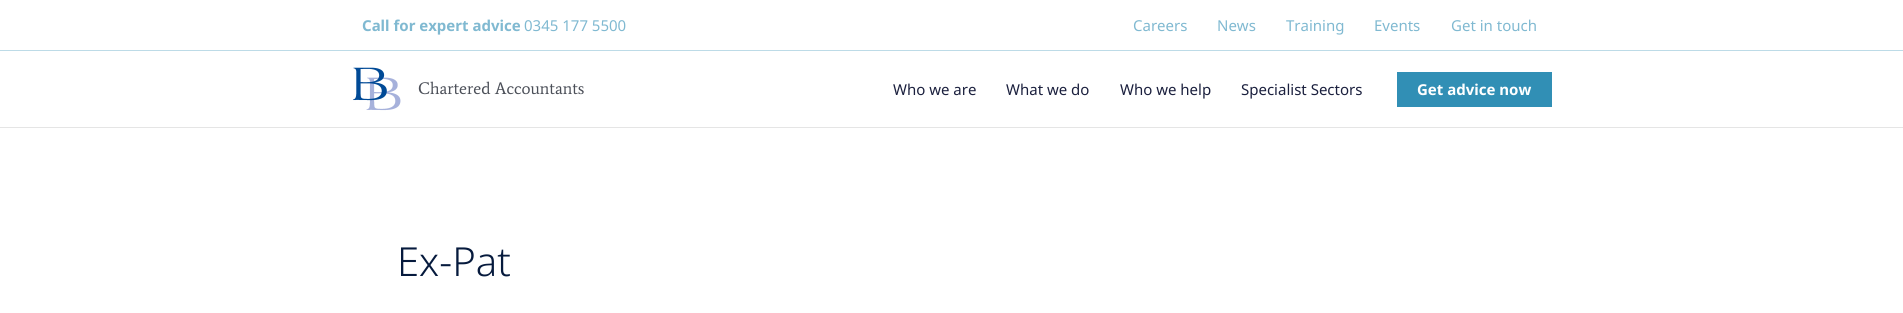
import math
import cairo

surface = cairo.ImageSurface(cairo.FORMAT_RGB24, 1903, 313)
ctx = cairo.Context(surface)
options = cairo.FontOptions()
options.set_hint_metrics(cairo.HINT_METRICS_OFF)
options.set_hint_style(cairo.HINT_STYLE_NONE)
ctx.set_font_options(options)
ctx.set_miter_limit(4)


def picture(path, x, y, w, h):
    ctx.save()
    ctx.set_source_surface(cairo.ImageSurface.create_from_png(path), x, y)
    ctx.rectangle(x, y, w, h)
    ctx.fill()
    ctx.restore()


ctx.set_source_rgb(1, 1, 1)
ctx.paint()
ctx.set_source_rgb(0.741, 0.859, 0.906)
ctx.rectangle(0, 50, 1903, 1)
ctx.fill()
ctx.select_font_face("Noto Sans", cairo.FONT_SLANT_NORMAL, cairo.FONT_WEIGHT_BOLD)
ctx.set_font_size(15)
ctx.set_source_rgb(0.502, 0.725, 0.82)
ctx.move_to(362, 31)
ctx.show_text("Call for expert advice")
ctx.select_font_face("Noto Sans")
ctx.move_to(524, 31)
ctx.show_text("0345 177 5500")
ctx.move_to(1133, 31)
ctx.show_text("Careers")
ctx.move_to(1217, 31)
ctx.show_text("News")
ctx.move_to(1286, 31)
ctx.show_text("Training")
ctx.move_to(1374, 31)
ctx.show_text("Events")
ctx.move_to(1451, 31)
ctx.show_text("Get in touch")
ctx.set_source_rgb(0.898, 0.898, 0.898)
ctx.rectangle(0, 127, 1903, 1)
ctx.fill()
picture("img1.png", 352, 67, 49, 44)
ctx.select_font_face("Average")
ctx.set_font_size(17)
ctx.set_source_rgb(0.294, 0.31, 0.345)
ctx.move_to(418, 94)
ctx.show_text("Chartered Accountants")
ctx.select_font_face("Noto Sans")
ctx.set_font_size(15)
ctx.set_source_rgb(0.106, 0.125, 0.243)
ctx.move_to(893, 95)
ctx.show_text("Who we are")
ctx.move_to(1006, 95)
ctx.show_text("What we do")
ctx.move_to(1120, 95)
ctx.show_text("Who we help")
ctx.move_to(1241, 95)
ctx.show_text("Specialist Sectors")
ctx.set_source_rgb(0.192, 0.561, 0.71)
ctx.rectangle(1397, 72, 155, 35)
ctx.fill()
ctx.select_font_face("Noto Sans", cairo.FONT_SLANT_NORMAL, cairo.FONT_WEIGHT_BOLD)
ctx.set_source_rgb(1, 1, 1)
ctx.move_to(1417, 95)
ctx.show_text("Get advice now")
ctx.select_font_face("Noto Sans Light")
ctx.set_font_size(40)
ctx.set_source_rgb(0.027, 0.102, 0.239)
ctx.move_to(397, 276)
ctx.show_text("Ex-Pat")
surface.write_to_png("page.png")
